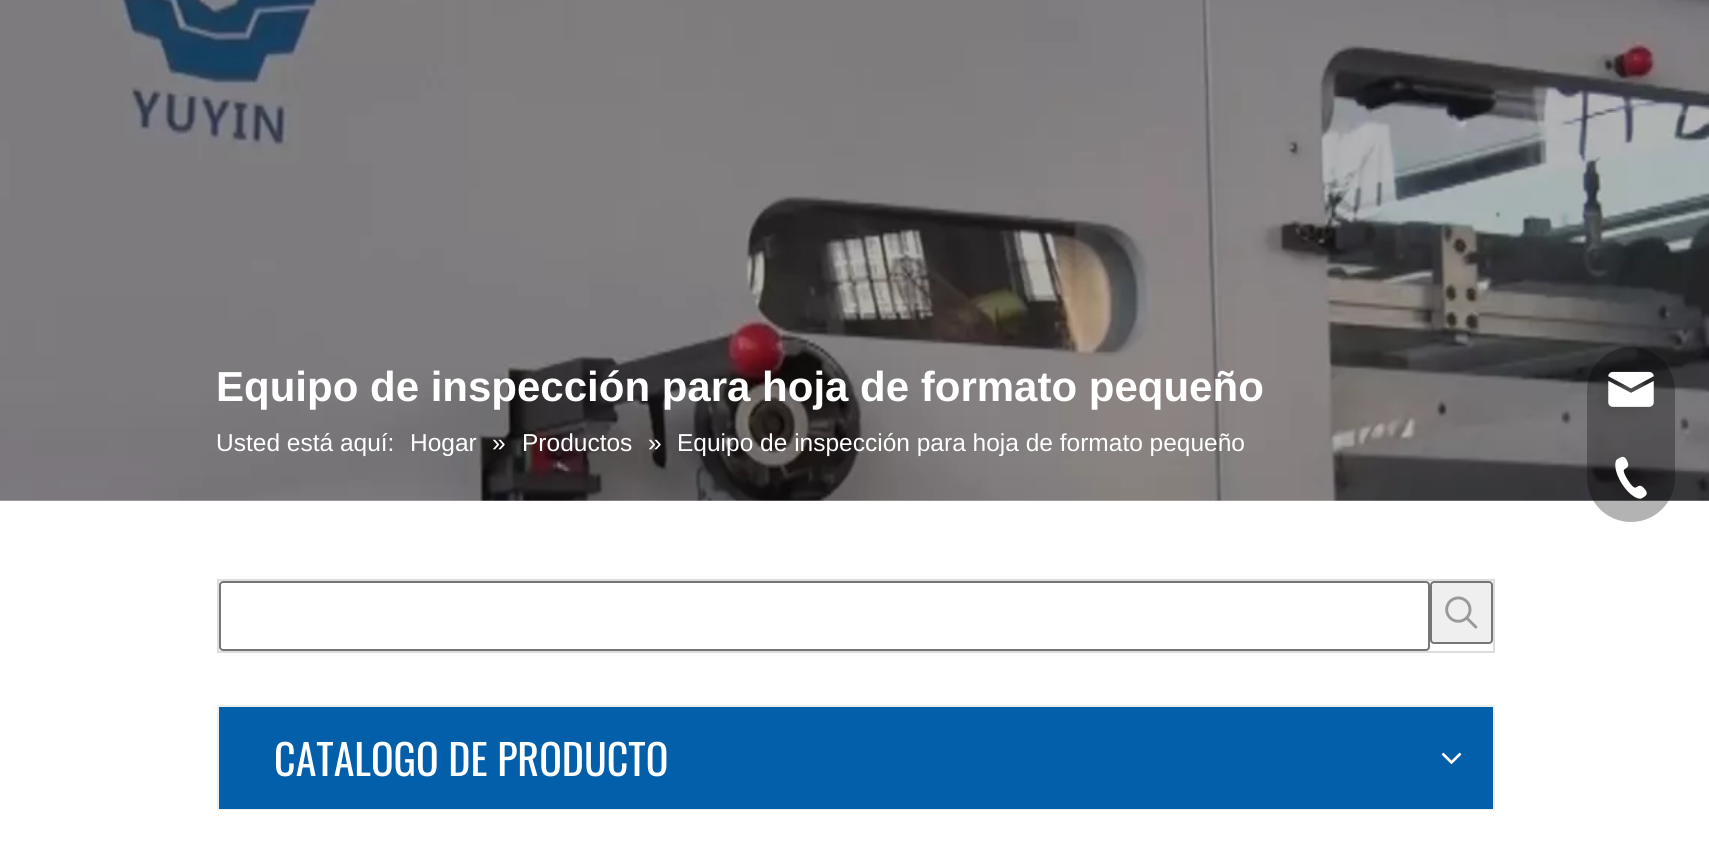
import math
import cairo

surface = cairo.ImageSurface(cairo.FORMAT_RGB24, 1709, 866)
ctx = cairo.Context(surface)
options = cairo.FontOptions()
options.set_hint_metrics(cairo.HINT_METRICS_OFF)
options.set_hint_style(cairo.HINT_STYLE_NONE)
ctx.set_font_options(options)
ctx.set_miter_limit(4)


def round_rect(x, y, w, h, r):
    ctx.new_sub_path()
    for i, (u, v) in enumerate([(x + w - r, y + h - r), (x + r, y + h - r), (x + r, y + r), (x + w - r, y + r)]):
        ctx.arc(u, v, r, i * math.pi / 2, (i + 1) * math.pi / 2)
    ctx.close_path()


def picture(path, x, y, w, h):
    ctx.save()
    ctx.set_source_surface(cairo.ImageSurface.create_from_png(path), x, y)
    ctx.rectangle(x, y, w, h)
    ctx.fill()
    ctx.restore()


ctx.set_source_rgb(1, 1, 1)
ctx.paint()
picture("img1.png", 0, 0, 1709, 501)
ctx.select_font_face("Liberation Sans", cairo.FONT_SLANT_NORMAL, cairo.FONT_WEIGHT_BOLD)
ctx.set_font_size(42)
ctx.set_source_rgb(1, 1, 1)
ctx.move_to(216, 401)
ctx.show_text("Equipo de inspección para hoja de formato pequeño")
ctx.select_font_face("Liberation Sans")
ctx.set_font_size(24.5)
ctx.move_to(216, 451)
ctx.show_text("Usted está aquí:")
ctx.move_to(410, 451)
ctx.show_text("Hogar")
ctx.move_to(492, 451)
ctx.show_text("»")
ctx.move_to(522, 451)
ctx.show_text("Productos")
ctx.move_to(648, 451)
ctx.show_text("»")
ctx.move_to(677, 451)
ctx.show_text("Equipo de inspección para hoja de formato pequeño")
ctx.rectangle(218, 580, 1276, 72)
ctx.set_source_rgb(0.867, 0.867, 0.867)
ctx.stroke()
round_rect(220, 582, 1209, 68, 3)
ctx.set_source_rgb(0.463, 0.463, 0.463)
ctx.stroke()
ctx.set_source_rgb(0.937, 0.937, 0.937)
round_rect(1431, 582, 61, 61, 3)
ctx.fill_preserve()
ctx.set_source_rgb(0.463, 0.463, 0.463)
ctx.stroke()
picture("img2.png", 1445, 596, 33, 33)
ctx.rectangle(218, 706, 1276, 103)
ctx.set_source_rgb(0.933, 0.933, 0.933)
ctx.stroke()
ctx.set_source_rgb(0.016, 0.373, 0.671)
ctx.rectangle(219, 707, 1274, 102)
ctx.fill()
ctx.select_font_face("Oswald")
ctx.set_font_size(42)
ctx.set_source_rgb(1, 1, 1)
ctx.move_to(274, 776)
ctx.show_text("CATALOGO DE PRODUCTO")
picture("img3.png", 1441, 752, 21, 13)
ctx.set_source_rgba(0, 0, 0, 0.3)
round_rect(1587, 347, 88, 175, 44)
ctx.fill()
picture("img4.png", 1608, 371, 46, 36)
picture("img5.png", 1615, 456, 32, 43)
surface.write_to_png("page.png")
